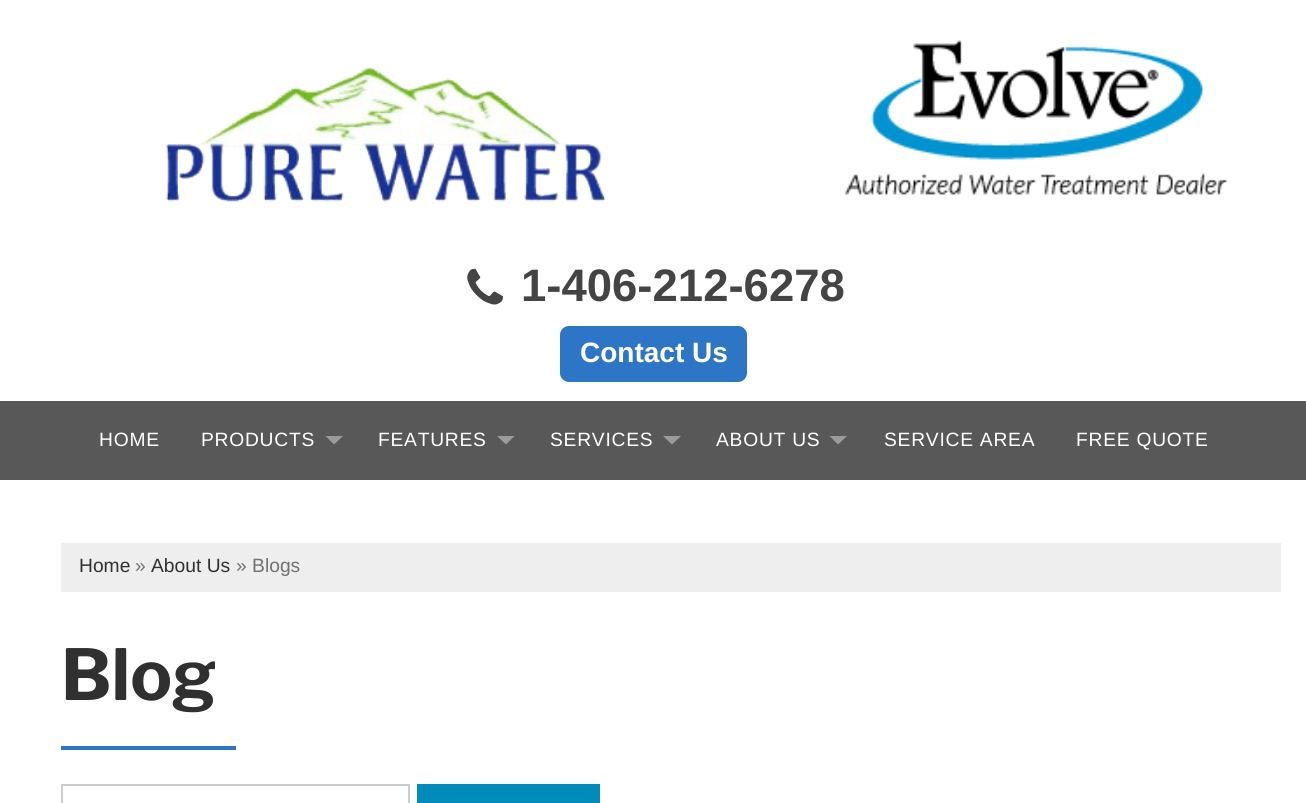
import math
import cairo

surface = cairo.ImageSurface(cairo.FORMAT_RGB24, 1306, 803)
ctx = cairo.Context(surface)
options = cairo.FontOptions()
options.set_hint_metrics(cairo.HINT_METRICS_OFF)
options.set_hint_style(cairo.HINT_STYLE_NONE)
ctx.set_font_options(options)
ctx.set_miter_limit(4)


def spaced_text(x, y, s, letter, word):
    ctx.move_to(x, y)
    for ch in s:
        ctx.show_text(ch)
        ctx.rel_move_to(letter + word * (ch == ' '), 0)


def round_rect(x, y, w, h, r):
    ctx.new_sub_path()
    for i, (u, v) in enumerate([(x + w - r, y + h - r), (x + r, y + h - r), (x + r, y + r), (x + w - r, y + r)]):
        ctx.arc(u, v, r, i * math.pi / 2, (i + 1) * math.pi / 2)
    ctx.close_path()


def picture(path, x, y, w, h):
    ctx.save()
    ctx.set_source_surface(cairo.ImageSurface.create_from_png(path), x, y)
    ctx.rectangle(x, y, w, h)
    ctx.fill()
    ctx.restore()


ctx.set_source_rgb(1, 1, 1)
ctx.paint()
picture("img1.png", 165, 67, 441, 135)
picture("img2.png", 844, 40, 384, 155)
picture("img3.png", 467, 268, 36, 37)
ctx.select_font_face("Liberation Sans", cairo.FONT_SLANT_NORMAL, cairo.FONT_WEIGHT_BOLD)
ctx.set_font_size(45.5)
ctx.set_source_rgb(0.267, 0.267, 0.267)
ctx.move_to(521, 301)
ctx.show_text("1-406-212-6278")
ctx.set_source_rgb(0.176, 0.463, 0.773)
round_rect(561, 327, 185, 54, 8)
ctx.fill_preserve()
ctx.stroke()
ctx.set_font_size(28)
ctx.set_source_rgb(1, 1, 1)
ctx.move_to(580, 362)
ctx.show_text("Contact Us")
ctx.set_source_rgb(0.345, 0.345, 0.345)
ctx.rectangle(0, 401, 1306, 79)
ctx.fill()
ctx.select_font_face("Liberation Sans")
ctx.set_font_size(19.25)
ctx.set_source_rgb(1, 1, 1)
spaced_text(99, 446, "HOME", 0.75, 0)
spaced_text(201, 446, "PRODUCTS", 0.75, 0)
ctx.set_source_rgb(0.608, 0.608, 0.608)
ctx.new_path()
ctx.move_to(325.5, 436)
ctx.line_to(343, 436)
ctx.line_to(334, 444.5)
ctx.close_path()
ctx.fill()
ctx.set_source_rgb(1, 1, 1)
spaced_text(378, 446, "FEATURES", 0.75, 0)
ctx.set_source_rgb(0.608, 0.608, 0.608)
ctx.new_path()
ctx.move_to(497, 436)
ctx.line_to(514.5, 436)
ctx.line_to(506, 444.5)
ctx.close_path()
ctx.fill()
ctx.set_source_rgb(1, 1, 1)
spaced_text(550, 446, "SERVICES", 0.75, 0)
ctx.set_source_rgb(0.608, 0.608, 0.608)
ctx.new_path()
ctx.move_to(663, 436)
ctx.line_to(681, 436)
ctx.line_to(672, 444.5)
ctx.close_path()
ctx.fill()
ctx.set_source_rgb(1, 1, 1)
spaced_text(716, 446, "ABOUT US", 0.75, 0)
ctx.set_source_rgb(0.608, 0.608, 0.608)
ctx.new_path()
ctx.move_to(829.5, 436)
ctx.line_to(847, 436)
ctx.line_to(838, 444.5)
ctx.close_path()
ctx.fill()
ctx.set_source_rgb(1, 1, 1)
spaced_text(884, 446, "SERVICE AREA", 0.75, 0)
spaced_text(1076, 446, "FREE QUOTE", 0.75, 0)
ctx.set_source_rgb(0.933, 0.933, 0.933)
ctx.rectangle(61, 543, 1220, 49)
ctx.fill()
ctx.set_source_rgb(0.188, 0.188, 0.188)
ctx.move_to(79, 572)
ctx.show_text("Home")
ctx.set_source_rgb(0.443, 0.443, 0.443)
ctx.move_to(135, 572)
ctx.show_text("»")
ctx.set_source_rgb(0.188, 0.188, 0.188)
ctx.move_to(151, 572)
ctx.show_text("About Us")
ctx.set_source_rgb(0.443, 0.443, 0.443)
ctx.move_to(236, 572)
ctx.show_text("» Blogs")
ctx.select_font_face("Libre Franklin", cairo.FONT_SLANT_NORMAL, cairo.FONT_WEIGHT_BOLD)
ctx.set_font_size(70)
ctx.set_source_rgb(0.188, 0.188, 0.188)
ctx.move_to(61, 700)
ctx.show_text("Blog")
ctx.set_source_rgb(0.176, 0.463, 0.773)
ctx.rectangle(61, 746, 175, 4)
ctx.fill()
ctx.rectangle(62, 785, 347, 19)
ctx.set_source_rgb(0.8, 0.8, 0.8)
ctx.stroke()
ctx.set_source_rgb(0, 0.549, 0.729)
ctx.rectangle(417, 784, 183, 19)
ctx.fill()
surface.write_to_png("page.png")
